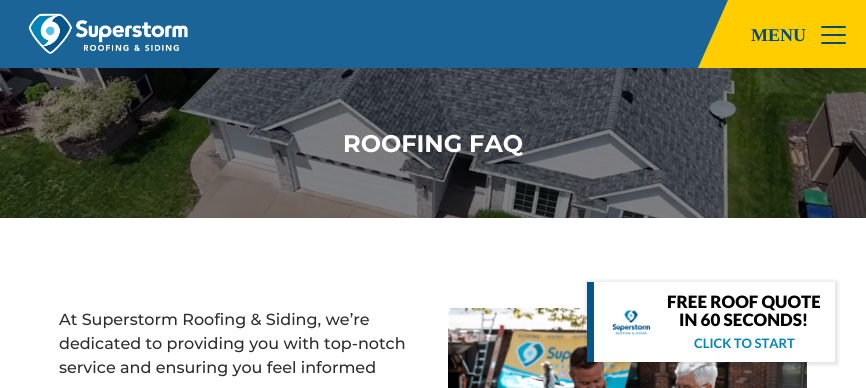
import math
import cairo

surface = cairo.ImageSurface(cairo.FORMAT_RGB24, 866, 388)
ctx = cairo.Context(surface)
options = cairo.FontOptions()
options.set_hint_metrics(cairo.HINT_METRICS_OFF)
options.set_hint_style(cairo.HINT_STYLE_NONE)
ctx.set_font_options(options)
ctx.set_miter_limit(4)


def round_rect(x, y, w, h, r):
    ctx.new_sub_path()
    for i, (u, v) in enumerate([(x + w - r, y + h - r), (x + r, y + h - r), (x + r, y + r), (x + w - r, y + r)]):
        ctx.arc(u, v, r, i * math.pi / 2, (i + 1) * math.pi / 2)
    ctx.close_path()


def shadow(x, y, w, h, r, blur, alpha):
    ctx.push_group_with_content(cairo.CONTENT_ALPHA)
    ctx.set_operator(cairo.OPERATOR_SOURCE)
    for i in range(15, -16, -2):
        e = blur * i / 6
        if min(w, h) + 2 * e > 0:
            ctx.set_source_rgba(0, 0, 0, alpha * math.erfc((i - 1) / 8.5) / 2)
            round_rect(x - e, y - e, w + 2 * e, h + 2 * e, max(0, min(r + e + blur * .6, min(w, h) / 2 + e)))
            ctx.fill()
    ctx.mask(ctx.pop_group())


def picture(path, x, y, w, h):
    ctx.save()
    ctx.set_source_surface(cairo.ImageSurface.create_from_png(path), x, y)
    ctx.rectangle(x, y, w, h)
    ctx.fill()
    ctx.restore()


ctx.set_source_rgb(1, 1, 1)
ctx.paint()
ctx.set_source_rgb(0.102, 0.392, 0.592)
ctx.rectangle(0, 0, 728, 68)
ctx.fill()
picture("img1.png", 28, 13, 160, 41)
ctx.set_source_rgb(1, 0.804, 0)
ctx.rectangle(728, 0, 138, 68)
ctx.fill()
ctx.new_path()
ctx.move_to(728, 68)
ctx.line_to(698, 68)
ctx.line_to(728, 0)
ctx.close_path()
ctx.fill()
ctx.select_font_face("Liberation Serif", cairo.FONT_SLANT_NORMAL, cairo.FONT_WEIGHT_BOLD)
ctx.set_font_size(18)
ctx.set_source_rgb(0, 0.298, 0.435)
ctx.move_to(751, 41)
ctx.show_text("MENU")
round_rect(821, 34, 25, 2, 1)
ctx.fill()
round_rect(821, 26, 25, 2, 1)
ctx.fill()
round_rect(821, 42, 25, 2, 1)
ctx.fill()
picture("img2.png", 0, 68, 866, 150)
ctx.select_font_face("Montserrat", cairo.FONT_SLANT_NORMAL, cairo.FONT_WEIGHT_BOLD)
ctx.set_font_size(24)
ctx.set_source_rgb(1, 1, 1)
ctx.move_to(343, 152)
ctx.show_text("ROOFING FAQ")
ctx.select_font_face("Montserrat Medium")
ctx.set_font_size(16)
ctx.set_source_rgb(0.176, 0.176, 0.176)
ctx.move_to(59, 325)
ctx.show_text("At Superstorm Roofing & Siding, we’re")
ctx.move_to(59, 349)
ctx.show_text("dedicated to providing you with top-notch")
ctx.move_to(59, 373)
ctx.show_text("service and ensuring you feel informed")
picture("img3.png", 448, 308, 359, 80)
ctx.set_source_rgb(0, 0, 0)
shadow(587, 282, 250, 82, 0, 2.5, 0.15)
ctx.set_source_rgb(1, 1, 1)
ctx.rectangle(594, 282, 241, 80)
ctx.fill()
ctx.set_source_rgb(0.008, 0.337, 0.541)
ctx.rectangle(587, 282, 7, 80)
ctx.fill()
picture("img4.png", 612, 310, 39, 25)
ctx.select_font_face("Lato Black")
ctx.set_font_size(17)
ctx.set_source_rgb(0, 0, 0)
ctx.move_to(667, 308)
ctx.show_text("FREE ROOF QUOTE")
ctx.move_to(679, 326)
ctx.show_text("IN 60 SECONDS!")
ctx.select_font_face("Lato", cairo.FONT_SLANT_NORMAL, cairo.FONT_WEIGHT_BOLD)
ctx.set_font_size(13)
ctx.set_source_rgb(0, 0.522, 0.718)
ctx.move_to(694, 348)
ctx.show_text("CLICK TO START")
surface.write_to_png("page.png")
